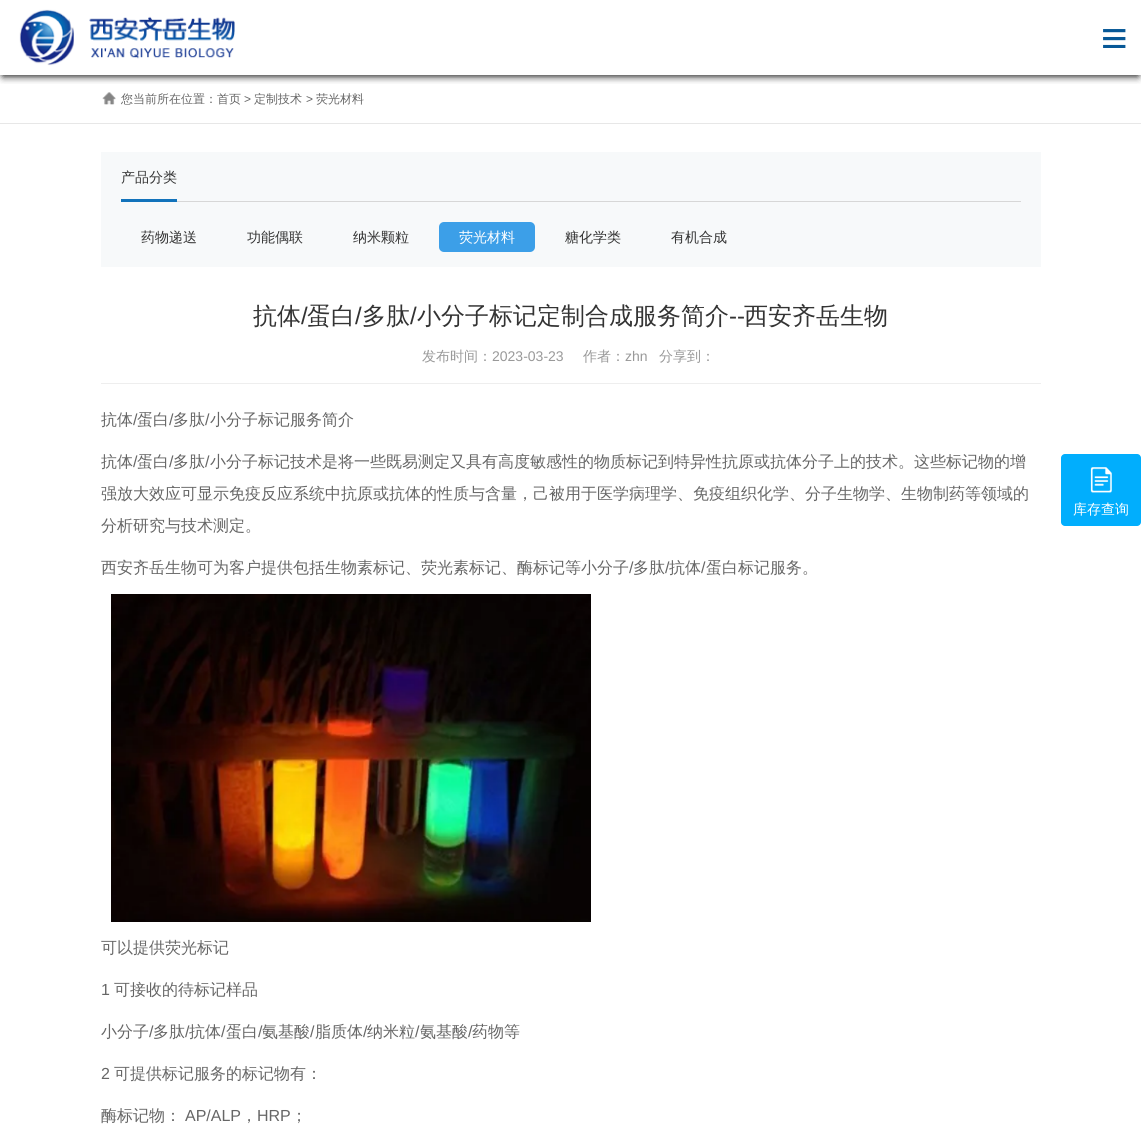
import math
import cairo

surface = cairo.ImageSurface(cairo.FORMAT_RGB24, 1141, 1130)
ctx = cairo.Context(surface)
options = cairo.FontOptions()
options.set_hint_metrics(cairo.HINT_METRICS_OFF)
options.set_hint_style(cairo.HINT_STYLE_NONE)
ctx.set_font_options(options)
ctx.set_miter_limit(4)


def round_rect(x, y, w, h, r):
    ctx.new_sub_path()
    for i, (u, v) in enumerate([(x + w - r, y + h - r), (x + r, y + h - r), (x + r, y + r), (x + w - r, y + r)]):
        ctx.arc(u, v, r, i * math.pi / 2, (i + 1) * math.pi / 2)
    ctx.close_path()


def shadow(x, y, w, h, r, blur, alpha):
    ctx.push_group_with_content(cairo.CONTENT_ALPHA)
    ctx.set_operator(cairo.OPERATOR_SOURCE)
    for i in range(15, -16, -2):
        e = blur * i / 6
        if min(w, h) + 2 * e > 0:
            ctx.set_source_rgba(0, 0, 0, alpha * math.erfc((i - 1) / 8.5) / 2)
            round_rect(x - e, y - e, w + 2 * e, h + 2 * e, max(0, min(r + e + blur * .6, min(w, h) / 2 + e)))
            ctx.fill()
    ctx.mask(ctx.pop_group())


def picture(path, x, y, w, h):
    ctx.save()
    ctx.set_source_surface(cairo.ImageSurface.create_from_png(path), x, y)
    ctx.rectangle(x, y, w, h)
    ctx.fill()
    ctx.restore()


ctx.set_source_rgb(1, 1, 1)
ctx.paint()
ctx.save()
ctx.rectangle(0, 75, 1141, 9)
ctx.clip()
ctx.set_source_rgb(0, 0, 0)
shadow(3, 7, 1135, 69, 0, 4, 1)
ctx.restore()
picture("img1.png", 19, 9, 216, 57)
picture("img2.png", 1103, 29, 23, 19)
ctx.set_source_rgb(0.906, 0.906, 0.906)
ctx.rectangle(0, 123, 1141, 1)
ctx.fill()
picture("img3.png", 102, 92, 14, 13)
ctx.select_font_face("WenQuanYi Zen Hei Medium")
ctx.set_font_size(12)
ctx.set_source_rgb(0.4, 0.4, 0.4)
ctx.move_to(121, 103)
ctx.show_text("您当前所在位置：首页")
ctx.select_font_face("Liberation Sans")
ctx.move_to(244, 103)
ctx.show_text(">")
ctx.select_font_face("WenQuanYi Zen Hei Medium")
ctx.move_to(254, 103)
ctx.show_text("定制技术")
ctx.select_font_face("Liberation Sans")
ctx.move_to(306, 103)
ctx.show_text(">")
ctx.select_font_face("WenQuanYi Zen Hei Medium")
ctx.move_to(316, 103)
ctx.show_text("荧光材料")
ctx.set_source_rgb(0.965, 0.973, 0.98)
ctx.rectangle(101, 152, 940, 115)
ctx.fill()
ctx.set_source_rgb(0.843, 0.843, 0.843)
ctx.rectangle(177, 201, 844, 1)
ctx.fill()
ctx.set_source_rgb(0.071, 0.451, 0.733)
ctx.rectangle(121, 199, 56, 3)
ctx.fill()
ctx.set_font_size(14)
ctx.set_source_rgb(0.2, 0.2, 0.2)
ctx.move_to(121, 182)
ctx.show_text("产品分类")
ctx.move_to(141, 242)
ctx.show_text("药物递送")
ctx.move_to(247, 242)
ctx.show_text("功能偶联")
ctx.move_to(353, 242)
ctx.show_text("纳米颗粒")
ctx.set_source_rgb(0.235, 0.624, 0.91)
round_rect(439, 222, 96, 30, 5)
ctx.fill()
ctx.set_source_rgb(1, 1, 1)
ctx.move_to(459, 242)
ctx.show_text("荧光材料")
ctx.set_source_rgb(0.2, 0.2, 0.2)
ctx.move_to(565, 242)
ctx.show_text("糖化学类")
ctx.move_to(671, 242)
ctx.show_text("有机合成")
ctx.set_font_size(24)
ctx.move_to(253, 324)
ctx.show_text("抗体")
ctx.select_font_face("Liberation Sans")
ctx.move_to(301, 324)
ctx.show_text("/")
ctx.select_font_face("WenQuanYi Zen Hei Medium")
ctx.move_to(307, 324)
ctx.show_text("蛋白")
ctx.select_font_face("Liberation Sans")
ctx.move_to(355, 324)
ctx.show_text("/")
ctx.select_font_face("WenQuanYi Zen Hei Medium")
ctx.move_to(362, 324)
ctx.show_text("多肽")
ctx.select_font_face("Liberation Sans")
ctx.move_to(410, 324)
ctx.show_text("/")
ctx.select_font_face("WenQuanYi Zen Hei Medium")
ctx.move_to(417, 324)
ctx.show_text("小分子标记定制合成服务简介")
ctx.select_font_face("Liberation Sans")
ctx.move_to(729, 324)
ctx.show_text("--")
ctx.select_font_face("WenQuanYi Zen Hei Medium")
ctx.move_to(744, 324)
ctx.show_text("西安齐岳生物")
ctx.set_source_rgb(0.933, 0.933, 0.933)
ctx.rectangle(101, 383, 940, 1)
ctx.fill()
ctx.set_font_size(14)
ctx.set_source_rgb(0.6, 0.6, 0.6)
ctx.move_to(422, 361)
ctx.show_text("发布时间：")
ctx.select_font_face("Liberation Sans")
ctx.move_to(492, 361)
ctx.show_text("2023-03-23")
ctx.select_font_face("WenQuanYi Zen Hei Medium")
ctx.move_to(583, 361)
ctx.show_text("作者：")
ctx.select_font_face("Liberation Sans")
ctx.move_to(625, 361)
ctx.show_text("zhn")
ctx.select_font_face("WenQuanYi Zen Hei Medium")
ctx.move_to(659, 361)
ctx.show_text("分享到：")
ctx.set_font_size(16)
ctx.set_source_rgb(0.4, 0.4, 0.4)
ctx.move_to(101, 425)
ctx.show_text("抗体")
ctx.select_font_face("Liberation Sans")
ctx.move_to(133, 425)
ctx.show_text("/")
ctx.select_font_face("WenQuanYi Zen Hei Medium")
ctx.move_to(137, 425)
ctx.show_text("蛋白")
ctx.select_font_face("Liberation Sans")
ctx.move_to(169, 425)
ctx.show_text("/")
ctx.select_font_face("WenQuanYi Zen Hei Medium")
ctx.move_to(173, 425)
ctx.show_text("多肽")
ctx.select_font_face("Liberation Sans")
ctx.move_to(205, 425)
ctx.show_text("/")
ctx.select_font_face("WenQuanYi Zen Hei Medium")
ctx.move_to(210, 425)
ctx.show_text("小分子标记服务简介")
ctx.move_to(101, 467)
ctx.show_text("抗体")
ctx.select_font_face("Liberation Sans")
ctx.move_to(133, 467)
ctx.show_text("/")
ctx.select_font_face("WenQuanYi Zen Hei Medium")
ctx.move_to(137, 467)
ctx.show_text("蛋白")
ctx.select_font_face("Liberation Sans")
ctx.move_to(169, 467)
ctx.show_text("/")
ctx.select_font_face("WenQuanYi Zen Hei Medium")
ctx.move_to(173, 467)
ctx.show_text("多肽")
ctx.select_font_face("Liberation Sans")
ctx.move_to(205, 467)
ctx.show_text("/")
ctx.select_font_face("WenQuanYi Zen Hei Medium")
ctx.move_to(210, 467)
ctx.show_text("小分子标记技术是将一些既易测定又具有高度敏感性的物质标记到特异性抗原或抗体分子上的技术。这些标记物的增")
ctx.move_to(101, 499)
ctx.show_text("强放大效应可显示免疫反应系统中抗原或抗体的性质与含量，己被用于医学病理学、免疫组织化学、分子生物学、生物制药等领域的")
ctx.move_to(101, 531)
ctx.show_text("分析研究与技术测定。")
ctx.move_to(101, 573)
ctx.show_text("西安齐岳生物可为客户提供包括生物素标记、荧光素标记、酶标记等小分子")
ctx.select_font_face("Liberation Sans")
ctx.move_to(629, 573)
ctx.show_text("/")
ctx.select_font_face("WenQuanYi Zen Hei Medium")
ctx.move_to(633, 573)
ctx.show_text("多肽")
ctx.select_font_face("Liberation Sans")
ctx.move_to(665, 573)
ctx.show_text("/")
ctx.select_font_face("WenQuanYi Zen Hei Medium")
ctx.move_to(669, 573)
ctx.show_text("抗体")
ctx.select_font_face("Liberation Sans")
ctx.move_to(701, 573)
ctx.show_text("/")
ctx.select_font_face("WenQuanYi Zen Hei Medium")
ctx.move_to(706, 573)
ctx.show_text("蛋白标记服务。")
picture("img4.png", 111, 594, 480, 328)
ctx.move_to(101, 953)
ctx.show_text("可以提供荧光标记")
ctx.select_font_face("Liberation Sans")
ctx.move_to(101, 995)
ctx.show_text("1")
ctx.select_font_face("WenQuanYi Zen Hei Medium")
ctx.move_to(114, 995)
ctx.show_text("可接收的待标记样品")
ctx.move_to(101, 1037)
ctx.show_text("小分子")
ctx.select_font_face("Liberation Sans")
ctx.move_to(149, 1037)
ctx.show_text("/")
ctx.select_font_face("WenQuanYi Zen Hei Medium")
ctx.move_to(153, 1037)
ctx.show_text("多肽")
ctx.select_font_face("Liberation Sans")
ctx.move_to(185, 1037)
ctx.show_text("/")
ctx.select_font_face("WenQuanYi Zen Hei Medium")
ctx.move_to(189, 1037)
ctx.show_text("抗体")
ctx.select_font_face("Liberation Sans")
ctx.move_to(221, 1037)
ctx.show_text("/")
ctx.select_font_face("WenQuanYi Zen Hei Medium")
ctx.move_to(226, 1037)
ctx.show_text("蛋白")
ctx.select_font_face("Liberation Sans")
ctx.move_to(258, 1037)
ctx.show_text("/")
ctx.select_font_face("WenQuanYi Zen Hei Medium")
ctx.move_to(262, 1037)
ctx.show_text("氨基酸")
ctx.select_font_face("Liberation Sans")
ctx.move_to(310, 1037)
ctx.show_text("/")
ctx.select_font_face("WenQuanYi Zen Hei Medium")
ctx.move_to(315, 1037)
ctx.show_text("脂质体")
ctx.select_font_face("Liberation Sans")
ctx.move_to(363, 1037)
ctx.show_text("/")
ctx.select_font_face("WenQuanYi Zen Hei Medium")
ctx.move_to(367, 1037)
ctx.show_text("纳米粒")
ctx.select_font_face("Liberation Sans")
ctx.move_to(415, 1037)
ctx.show_text("/")
ctx.select_font_face("WenQuanYi Zen Hei Medium")
ctx.move_to(420, 1037)
ctx.show_text("氨基酸")
ctx.select_font_face("Liberation Sans")
ctx.move_to(468, 1037)
ctx.show_text("/")
ctx.select_font_face("WenQuanYi Zen Hei Medium")
ctx.move_to(472, 1037)
ctx.show_text("药物等")
ctx.select_font_face("Liberation Sans")
ctx.move_to(101, 1079)
ctx.show_text("2")
ctx.select_font_face("WenQuanYi Zen Hei Medium")
ctx.move_to(114, 1079)
ctx.show_text("可提供标记服务的标记物有：")
ctx.move_to(101, 1121)
ctx.show_text("酶标记物：")
ctx.select_font_face("Liberation Sans")
ctx.move_to(185, 1121)
ctx.show_text("AP/ALP")
ctx.select_font_face("WenQuanYi Zen Hei Medium")
ctx.move_to(241, 1121)
ctx.show_text("，")
ctx.select_font_face("Liberation Sans")
ctx.move_to(257, 1121)
ctx.show_text("HRP")
ctx.select_font_face("WenQuanYi Zen Hei Medium")
ctx.move_to(291, 1121)
ctx.show_text("；")
ctx.set_source_rgb(0.004, 0.682, 0.992)
round_rect(1061, 454, 80, 72, 4)
ctx.fill()
picture("img5.png", 1090, 467, 22, 26)
ctx.set_font_size(14)
ctx.set_source_rgb(1, 1, 1)
ctx.move_to(1073, 514)
ctx.show_text("库存查询")
surface.write_to_png("page.png")
